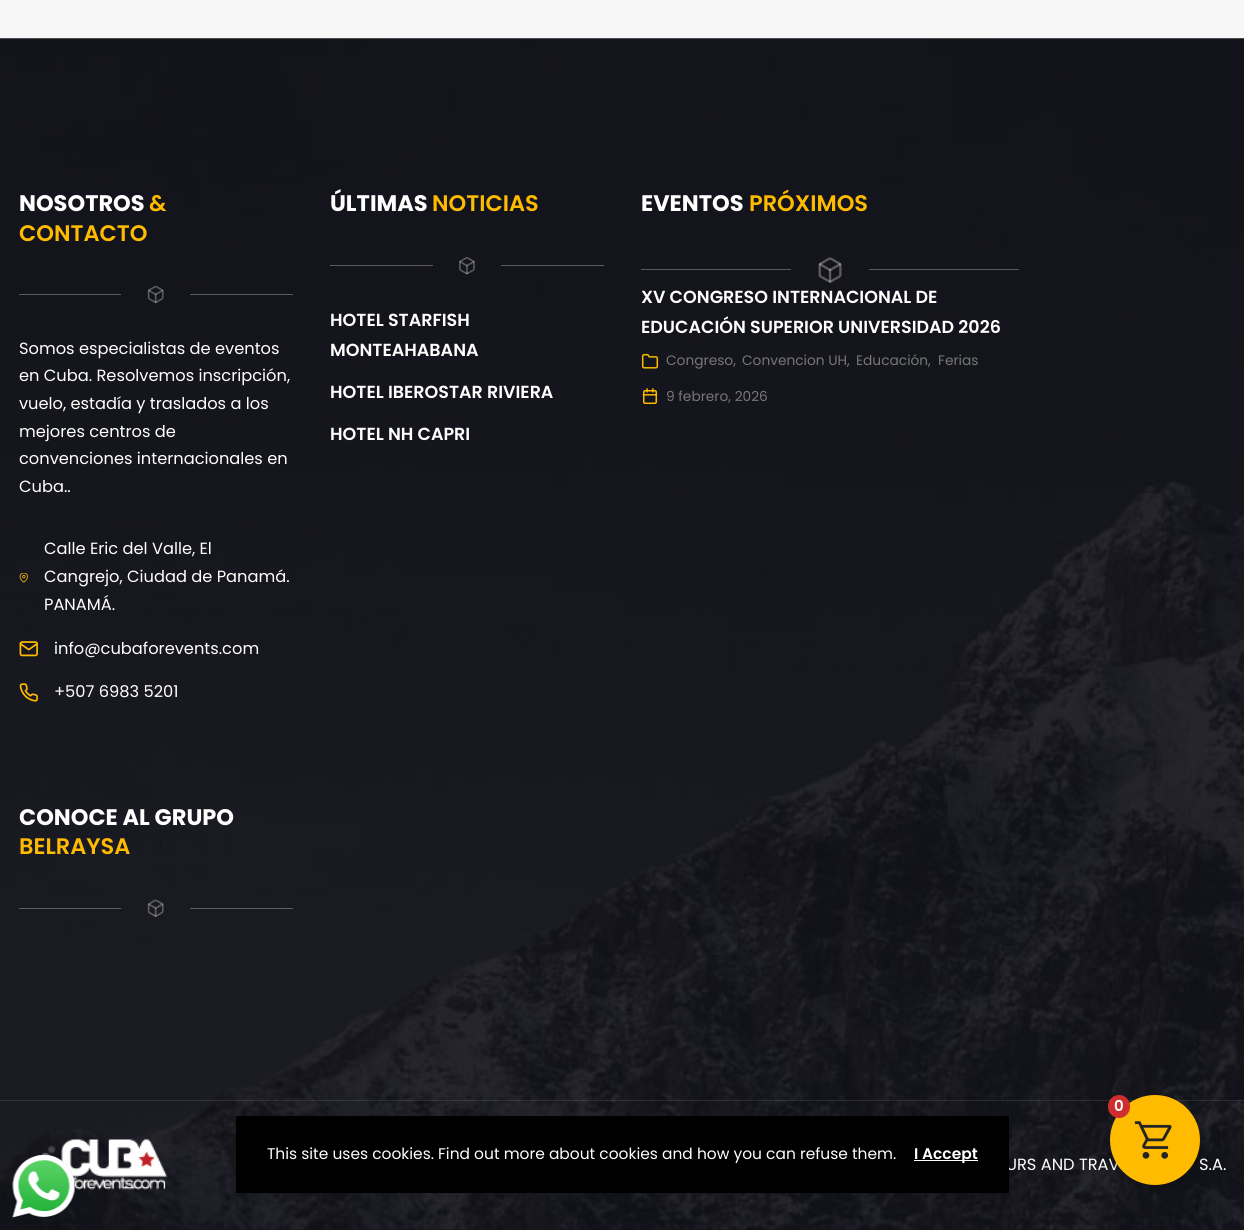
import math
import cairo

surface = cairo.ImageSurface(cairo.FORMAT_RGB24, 1244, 1230)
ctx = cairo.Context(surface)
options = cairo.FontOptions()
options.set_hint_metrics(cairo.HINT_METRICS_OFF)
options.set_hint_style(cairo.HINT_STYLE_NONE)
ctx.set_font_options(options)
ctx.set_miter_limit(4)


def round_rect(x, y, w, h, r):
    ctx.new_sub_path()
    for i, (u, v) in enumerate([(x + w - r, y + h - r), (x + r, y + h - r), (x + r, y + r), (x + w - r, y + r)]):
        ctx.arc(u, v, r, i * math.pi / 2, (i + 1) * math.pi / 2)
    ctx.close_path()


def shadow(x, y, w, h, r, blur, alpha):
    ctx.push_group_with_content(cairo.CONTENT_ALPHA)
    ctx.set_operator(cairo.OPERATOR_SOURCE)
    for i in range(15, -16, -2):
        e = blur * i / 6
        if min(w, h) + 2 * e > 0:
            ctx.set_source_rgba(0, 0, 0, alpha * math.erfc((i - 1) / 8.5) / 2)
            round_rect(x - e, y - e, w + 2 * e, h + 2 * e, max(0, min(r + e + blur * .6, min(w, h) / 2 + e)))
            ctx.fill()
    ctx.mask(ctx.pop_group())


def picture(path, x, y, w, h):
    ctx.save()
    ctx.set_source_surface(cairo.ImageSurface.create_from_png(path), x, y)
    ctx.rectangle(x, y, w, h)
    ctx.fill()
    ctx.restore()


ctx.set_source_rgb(0.965, 0.965, 0.965)
ctx.paint()
ctx.set_source_rgb(0.071, 0.071, 0.098)
ctx.rectangle(0, 1229, 1244, 1)
ctx.fill()
picture("img1.png", 0, 38, 1244, 1192)
ctx.select_font_face("Poppins", cairo.FONT_SLANT_NORMAL, cairo.FONT_WEIGHT_BOLD)
ctx.set_font_size(22.5)
ctx.set_source_rgb(1, 1, 1)
ctx.move_to(19, 211)
ctx.show_text("NOSOTROS")
ctx.select_font_face("Poppins SemiBold")
ctx.set_source_rgb(1, 0.733, 0)
ctx.move_to(149, 211)
ctx.show_text("&")
ctx.move_to(19, 241)
ctx.show_text("CONTACTO")
ctx.set_source_rgb(0.357, 0.357, 0.373)
ctx.rectangle(19, 294, 102, 1)
ctx.fill()
picture("img2.png", 147, 285, 17, 19)
ctx.rectangle(190, 294, 103, 1)
ctx.fill()
ctx.select_font_face("Poppins")
ctx.set_font_size(16.25)
ctx.set_source_rgb(1, 1, 1)
ctx.move_to(19, 354)
ctx.show_text("Somos especialistas de eventos")
ctx.move_to(19, 381)
ctx.show_text("en Cuba. Resolvemos inscripción,")
ctx.move_to(19, 409)
ctx.show_text("vuelo, estadía y traslados a los")
ctx.move_to(19, 437)
ctx.show_text("mejores centros de")
ctx.move_to(19, 464)
ctx.show_text("convenciones internacionales en")
ctx.move_to(19, 492)
ctx.show_text("Cuba..")
ctx.move_to(44, 554)
ctx.show_text("Calle Eric del Valle, El")
picture("img3.png", 19, 573, 9, 10)
ctx.move_to(44, 582)
ctx.show_text("Cangrejo, Ciudad de Panamá.")
ctx.move_to(44, 610)
ctx.show_text("PANAMÁ.")
picture("img4.png", 19, 641, 19, 16)
ctx.move_to(54, 654)
ctx.show_text("info@cubaforevents.com")
picture("img5.png", 19, 683, 19, 19)
ctx.move_to(54, 697)
ctx.show_text("+507 6983 5201")
ctx.select_font_face("Poppins", cairo.FONT_SLANT_NORMAL, cairo.FONT_WEIGHT_BOLD)
ctx.set_font_size(22.5)
ctx.move_to(330, 211)
ctx.show_text("ÚLTIMAS")
ctx.select_font_face("Poppins SemiBold")
ctx.set_source_rgb(1, 0.733, 0)
ctx.move_to(432, 211)
ctx.show_text("NOTICIAS")
ctx.set_source_rgb(0.357, 0.357, 0.373)
ctx.rectangle(330, 265, 103, 1)
ctx.fill()
picture("img6.png", 459, 257, 16, 18)
ctx.rectangle(501, 265, 103, 1)
ctx.fill()
ctx.set_font_size(17.5)
ctx.set_source_rgb(1, 1, 1)
ctx.move_to(330, 326)
ctx.show_text("HOTEL STARFISH")
ctx.move_to(330, 356)
ctx.show_text("MONTEAHABANA")
ctx.move_to(330, 398)
ctx.show_text("HOTEL IBEROSTAR RIVIERA")
ctx.move_to(330, 440)
ctx.show_text("HOTEL NH CAPRI")
ctx.select_font_face("Poppins", cairo.FONT_SLANT_NORMAL, cairo.FONT_WEIGHT_BOLD)
ctx.set_font_size(22.5)
ctx.move_to(641, 211)
ctx.show_text("EVENTOS")
ctx.select_font_face("Poppins SemiBold")
ctx.set_source_rgb(1, 0.733, 0)
ctx.move_to(749, 211)
ctx.show_text("PRÓXIMOS")
ctx.set_source_rgb(0.357, 0.357, 0.373)
ctx.rectangle(641, 269, 150, 1)
ctx.fill()
picture("img7.png", 818, 257, 24, 26)
ctx.set_source_rgb(0.357, 0.357, 0.376)
ctx.rectangle(869, 269, 150, 1)
ctx.fill()
ctx.set_font_size(17.5)
ctx.set_source_rgb(1, 1, 1)
ctx.move_to(641, 303)
ctx.show_text("XV CONGRESO INTERNACIONAL DE")
ctx.move_to(641, 333)
ctx.show_text("EDUCACIÓN SUPERIOR UNIVERSIDAD 2026")
picture("img8.png", 641, 353, 18, 16)
ctx.select_font_face("Poppins")
ctx.set_font_size(13.75)
ctx.set_source_rgb(0.467, 0.467, 0.467)
ctx.move_to(666, 365)
ctx.show_text("Congreso,")
ctx.move_to(742, 365)
ctx.show_text("Convencion UH,")
ctx.move_to(856, 365)
ctx.show_text("Educación,")
ctx.move_to(938, 365)
ctx.show_text("Ferias")
picture("img9.png", 642, 388, 16, 16)
ctx.move_to(666, 401)
ctx.show_text("9 febrero, 2026")
ctx.select_font_face("Poppins", cairo.FONT_SLANT_NORMAL, cairo.FONT_WEIGHT_BOLD)
ctx.set_font_size(22.5)
ctx.set_source_rgb(1, 1, 1)
ctx.move_to(19, 825)
ctx.show_text("CONOCE AL GRUPO")
ctx.select_font_face("Poppins SemiBold")
ctx.set_source_rgb(1, 0.733, 0)
ctx.move_to(19, 854)
ctx.show_text("BELRAYSA")
ctx.set_source_rgb(0.373, 0.373, 0.392)
ctx.rectangle(19, 908, 102, 1)
ctx.fill()
picture("img10.png", 147, 899, 17, 18)
ctx.rectangle(190, 908, 103, 1)
ctx.fill()
ctx.set_source_rgba(1, 1, 1, 0.1)
ctx.rectangle(0, 1100, 1244, 1)
ctx.fill()
picture("img11.png", 41, 1139, 127, 51)
ctx.select_font_face("Poppins")
ctx.set_font_size(16.25)
ctx.set_source_rgb(1, 1, 1)
ctx.move_to(1006, 1170)
ctx.show_text("URS AND TRAV")
ctx.move_to(1199, 1170)
ctx.show_text("S.A.")
ctx.set_source_rgb(0, 0, 0)
ctx.rectangle(236, 1116, 773, 77)
ctx.fill()
ctx.set_font_size(15.45)
ctx.set_source_rgb(1, 1, 1)
ctx.move_to(267, 1159)
ctx.show_text("This site uses cookies. Find out more about cookies and how you can refuse them.")
ctx.rectangle(914, 1160, 64, 1)
ctx.fill()
ctx.select_font_face("Poppins SemiBold")
ctx.move_to(914, 1159)
ctx.show_text("I Accept")
ctx.set_source_rgb(0, 0, 0)
shadow(1110, 1098, 90, 90, 45, 5, 0.25)
ctx.set_source_rgb(1, 0.733, 0)
ctx.arc(1155, 1140, 45, 0, 2 * math.pi)
ctx.fill()
picture("img12.png", 1134, 1121, 38, 38)
ctx.set_source_rgb(0.812, 0.18, 0.18)
round_rect(1108, 1095, 22, 23, 11)
ctx.fill()
ctx.set_font_size(15)
ctx.set_source_rgb(1, 1, 1)
ctx.move_to(1114, 1111)
ctx.show_text("0")
picture("img13.png", 12, 1155, 64, 63)
surface.write_to_png("page.png")
